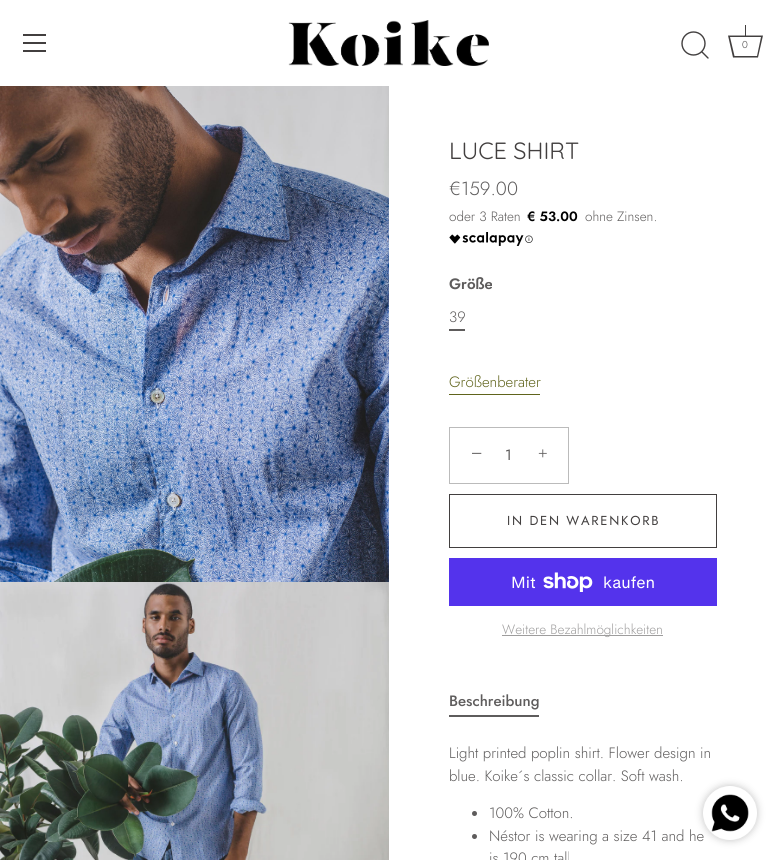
import math
import cairo

surface = cairo.ImageSurface(cairo.FORMAT_RGB24, 777, 860)
ctx = cairo.Context(surface)
options = cairo.FontOptions()
options.set_hint_metrics(cairo.HINT_METRICS_OFF)
options.set_hint_style(cairo.HINT_STYLE_NONE)
ctx.set_font_options(options)
ctx.set_miter_limit(4)


def spaced_text(x, y, s, letter, word):
    ctx.move_to(x, y)
    for ch in s:
        ctx.show_text(ch)
        ctx.rel_move_to(letter + word * (ch == ' '), 0)


def round_rect(x, y, w, h, r):
    ctx.new_sub_path()
    for i, (u, v) in enumerate([(x + w - r, y + h - r), (x + r, y + h - r), (x + r, y + r), (x + w - r, y + r)]):
        ctx.arc(u, v, r, i * math.pi / 2, (i + 1) * math.pi / 2)
    ctx.close_path()


def shadow(x, y, w, h, r, blur, alpha):
    ctx.push_group_with_content(cairo.CONTENT_ALPHA)
    ctx.set_operator(cairo.OPERATOR_SOURCE)
    for i in range(15, -16, -2):
        e = blur * i / 6
        if min(w, h) + 2 * e > 0:
            ctx.set_source_rgba(0, 0, 0, alpha * math.erfc((i - 1) / 8.5) / 2)
            round_rect(x - e, y - e, w + 2 * e, h + 2 * e, max(0, min(r + e + blur * .6, min(w, h) / 2 + e)))
            ctx.fill()
    ctx.mask(ctx.pop_group())


def picture(path, x, y, w, h):
    ctx.save()
    ctx.set_source_surface(cairo.ImageSurface.create_from_png(path), x, y)
    ctx.rectangle(x, y, w, h)
    ctx.fill()
    ctx.restore()


ctx.set_source_rgb(1, 1, 1)
ctx.paint()
ctx.set_source_rgb(0.259, 0.247, 0.247)
ctx.rectangle(23, 34, 23, 2)
ctx.fill()
ctx.rectangle(23, 42, 23, 2)
ctx.fill()
ctx.rectangle(23, 50, 23, 2)
ctx.fill()
picture("img1.png", 288, 20, 201, 46)
ctx.arc(693.5, 43.5, 11.5, 0, 2 * math.pi)
ctx.set_line_width(1.4)
ctx.stroke()
ctx.new_path()
ctx.move_to(708, 58)
ctx.line_to(702, 52)
ctx.set_line_cap(cairo.LINE_CAP_ROUND)
ctx.set_line_join(cairo.LINE_JOIN_ROUND)
ctx.stroke()
ctx.new_path()
ctx.move_to(761, 37)
ctx.line_to(757, 56)
ctx.line_to(734.5, 56)
ctx.line_to(730, 37)
ctx.line_to(761, 37)
ctx.move_to(763, 35.5)
ctx.line_to(728, 35.5)
ctx.line_to(733, 57.5)
ctx.line_to(758, 57.5)
ctx.close_path()
ctx.fill()
ctx.rectangle(745, 25, 1, 11)
ctx.fill()
ctx.select_font_face("Jost Light")
ctx.set_font_size(10)
ctx.move_to(742, 48)
ctx.show_text("0")
picture("img2.png", 0, 86, 389, 496)
picture("img3.png", 0, 582, 389, 278)
ctx.select_font_face("Quicksand")
ctx.set_font_size(23.5)
ctx.move_to(449, 159)
ctx.show_text("LUCE SHIRT")
ctx.select_font_face("Jost Light")
ctx.set_font_size(19)
ctx.set_source_rgb(0.369, 0.361, 0.361)
ctx.move_to(449, 195)
ctx.show_text("€159.00")
ctx.set_font_size(13.5)
ctx.move_to(449, 221)
ctx.show_text("oder 3 Raten")
ctx.select_font_face("Jost SemiBold")
ctx.set_source_rgb(0, 0, 0)
ctx.move_to(527, 221)
ctx.show_text("€ 53.00")
ctx.select_font_face("Jost Light")
ctx.set_source_rgb(0.369, 0.361, 0.361)
ctx.move_to(585, 221)
ctx.show_text("ohne Zinsen.")
picture("img4.png", 449, 232, 75, 14)
picture("img5.png", 525, 235, 8, 8)
ctx.select_font_face("Jost SemiBold")
ctx.set_font_size(15)
ctx.move_to(449, 289)
ctx.show_text("Größe")
ctx.select_font_face("Jost Light")
ctx.move_to(449, 322)
ctx.show_text("39")
ctx.rectangle(449, 329, 16, 2)
ctx.fill()
ctx.set_source_rgb(0.376, 0.392, 0.11)
ctx.rectangle(449, 394, 91, 1)
ctx.fill()
ctx.move_to(449, 387)
ctx.show_text("Größenberater")
ctx.rectangle(449.5, 427.5, 119, 56)
ctx.set_source_rgb(0.733, 0.733, 0.733)
ctx.set_line_width(1)
ctx.set_line_cap(cairo.LINE_CAP_BUTT)
ctx.set_line_join(cairo.LINE_JOIN_MITER)
ctx.stroke()
ctx.select_font_face("Liberation Serif")
ctx.set_font_size(20)
ctx.set_source_rgb(0.369, 0.361, 0.361)
ctx.move_to(471, 460)
ctx.show_text("−")
ctx.select_font_face("Jost")
ctx.set_font_size(15)
spaced_text(505, 460, "1", 1, 0)
ctx.select_font_face("Liberation Serif")
ctx.set_font_size(17)
ctx.move_to(538, 459)
ctx.show_text("+")
ctx.rectangle(449.5, 494.5, 267, 53)
ctx.set_source_rgb(0.259, 0.247, 0.247)
ctx.stroke()
ctx.select_font_face("Jost")
ctx.set_font_size(13)
spaced_text(507, 525, "IN DEN WARENKORB", 1.75, 0)
ctx.set_source_rgb(0.329, 0.2, 0.922)
ctx.rectangle(449, 558, 268, 48)
ctx.fill()
ctx.select_font_face("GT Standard")
ctx.set_font_size(16)
ctx.set_source_rgb(1, 1, 1)
ctx.move_to(511, 588)
ctx.show_text("Mit")
picture("img6.png", 543, 572, 50, 20)
ctx.move_to(603, 588)
ctx.show_text("kaufen")
ctx.set_source_rgb(0.62, 0.616, 0.616)
ctx.rectangle(502, 635, 161, 1)
ctx.fill()
ctx.select_font_face("Jost Light")
ctx.set_font_size(13.5)
ctx.move_to(502, 634)
ctx.show_text("Weitere Bezahlmöglichkeiten")
ctx.select_font_face("Jost Medium")
ctx.set_font_size(15)
ctx.set_source_rgb(0.369, 0.361, 0.361)
ctx.move_to(449, 706)
ctx.show_text("Beschreibung")
ctx.rectangle(449, 715, 90, 2)
ctx.fill()
ctx.select_font_face("Jost Light")
ctx.move_to(449, 758)
ctx.show_text("Light printed poplin shirt. Flower design in")
ctx.move_to(449, 781)
ctx.show_text("blue. Koike´s classic collar. Soft wash.")
ctx.new_path()
ctx.arc(474.5, 813.5, 2.5, 0, 2 * math.pi)
ctx.fill()
ctx.move_to(489, 818)
ctx.show_text("100% Cotton.")
ctx.new_path()
ctx.arc(474.5, 836.5, 2.5, 0, 2 * math.pi)
ctx.fill()
ctx.move_to(489, 841)
ctx.show_text("Néstor is wearing a size 41 and he")
ctx.move_to(489, 863)
ctx.show_text("is 190 cm tall")
ctx.set_source_rgb(0.761, 0.761, 0.761)
shadow(703, 786, 54, 54, 27, 4, 1)
picture("img7.png", 703, 786, 54, 54)
surface.write_to_png("page.png")
